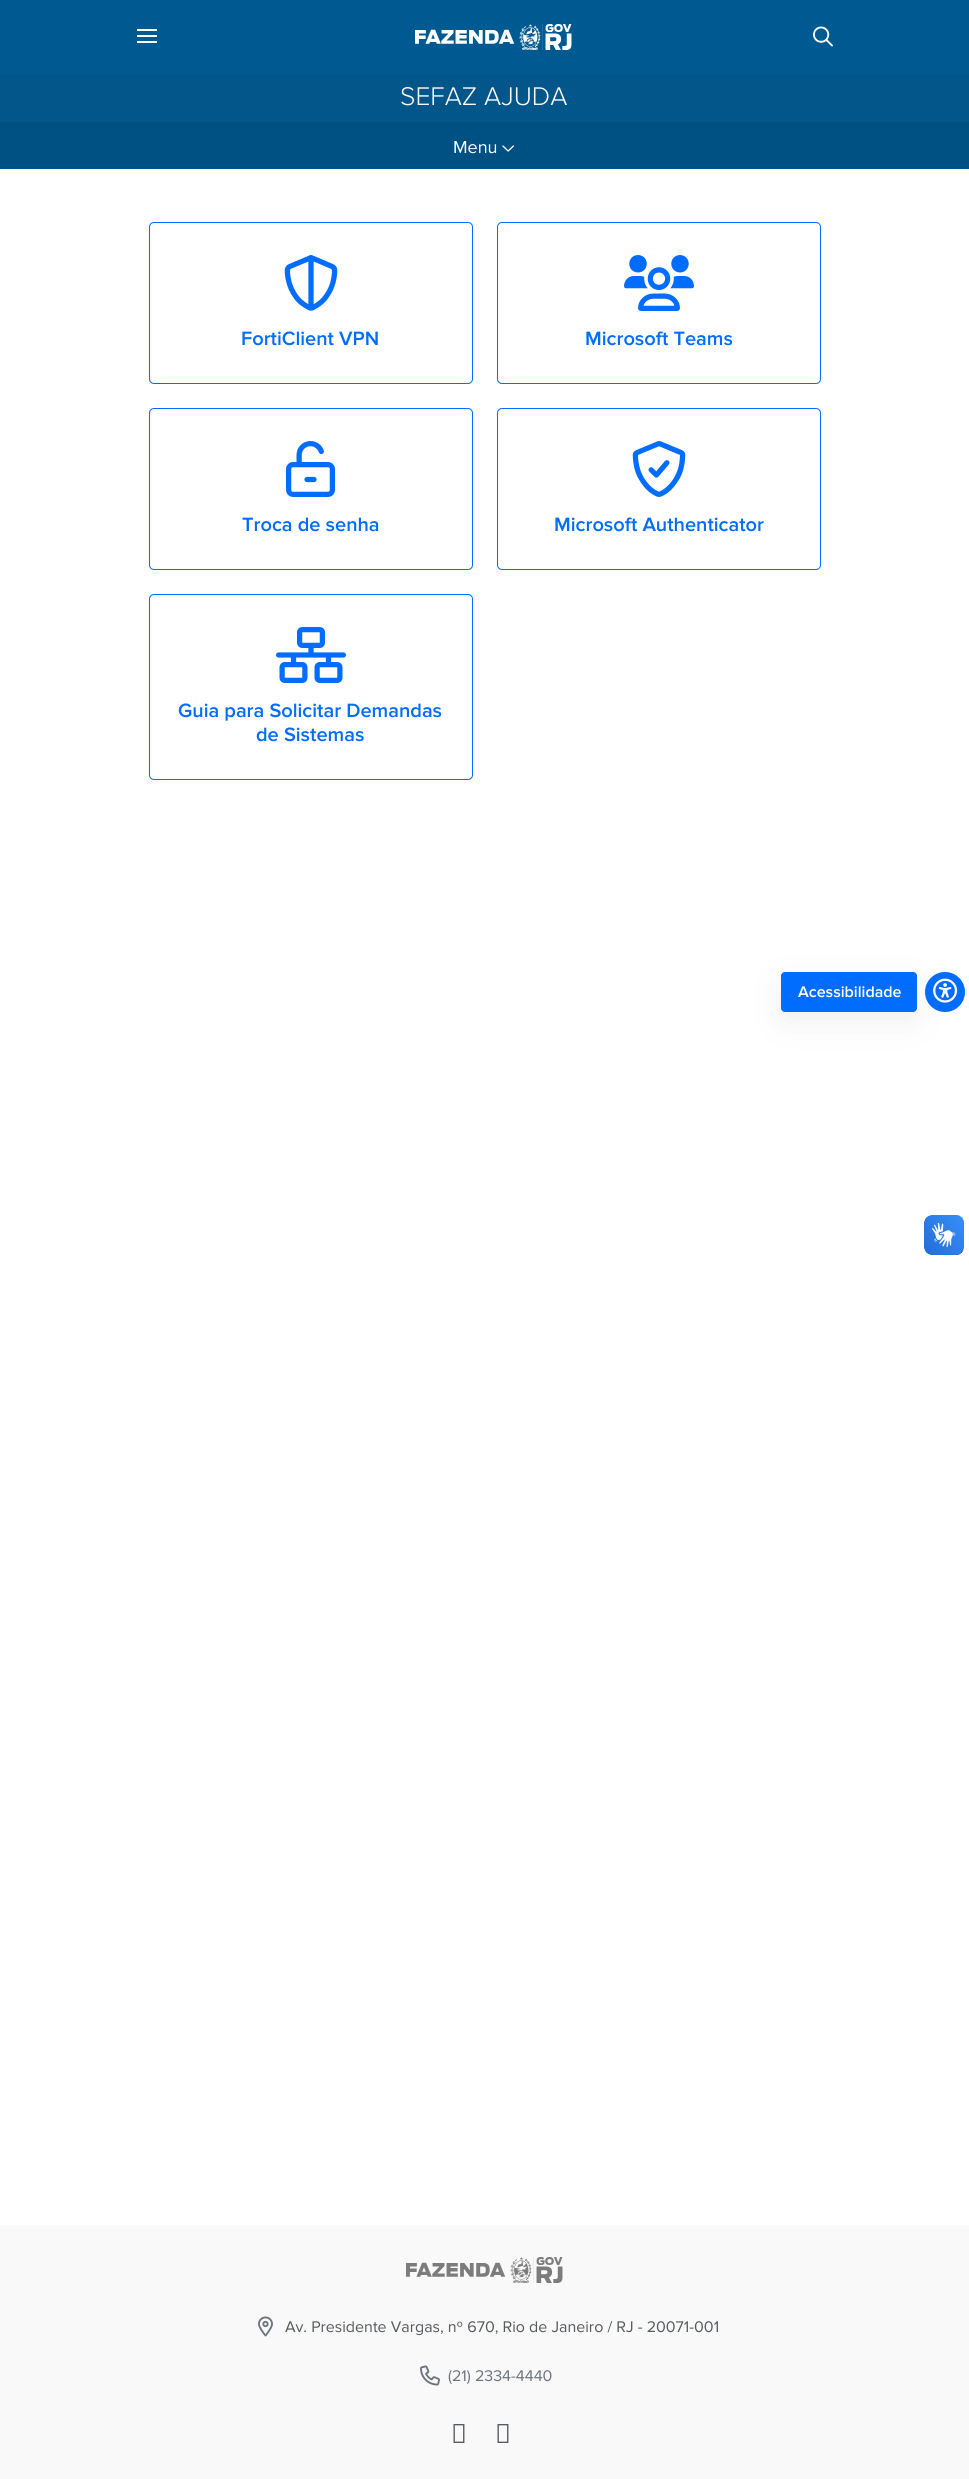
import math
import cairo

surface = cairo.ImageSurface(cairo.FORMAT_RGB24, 969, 2479)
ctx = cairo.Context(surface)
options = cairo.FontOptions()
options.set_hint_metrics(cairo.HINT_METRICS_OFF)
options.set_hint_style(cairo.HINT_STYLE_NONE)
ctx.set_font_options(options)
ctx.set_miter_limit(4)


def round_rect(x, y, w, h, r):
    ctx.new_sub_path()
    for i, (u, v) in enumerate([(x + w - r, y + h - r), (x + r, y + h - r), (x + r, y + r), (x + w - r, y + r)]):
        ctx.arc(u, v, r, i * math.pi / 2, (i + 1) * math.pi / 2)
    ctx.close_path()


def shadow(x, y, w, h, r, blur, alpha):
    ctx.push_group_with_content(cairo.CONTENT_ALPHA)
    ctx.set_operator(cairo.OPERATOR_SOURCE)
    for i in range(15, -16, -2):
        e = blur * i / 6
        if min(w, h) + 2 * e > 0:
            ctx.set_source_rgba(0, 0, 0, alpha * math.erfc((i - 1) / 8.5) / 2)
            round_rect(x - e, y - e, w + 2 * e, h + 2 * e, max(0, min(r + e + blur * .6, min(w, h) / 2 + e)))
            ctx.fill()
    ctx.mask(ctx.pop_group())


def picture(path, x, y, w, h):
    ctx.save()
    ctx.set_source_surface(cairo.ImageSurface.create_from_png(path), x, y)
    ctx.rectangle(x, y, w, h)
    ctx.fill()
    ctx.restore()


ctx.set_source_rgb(1, 1, 1)
ctx.paint()
ctx.set_source_rgb(0, 0.353, 0.573)
ctx.rectangle(0, 0, 969, 74)
ctx.fill()
ctx.set_source_rgb(1, 1, 1)
ctx.rectangle(137, 35, 20, 2)
ctx.fill()
ctx.rectangle(137, 29, 20, 2)
ctx.fill()
ctx.rectangle(137, 41, 20, 2)
ctx.fill()
picture("img1.png", 415, 24, 157, 26)
picture("img2.png", 813, 26, 20, 21)
ctx.set_source_rgb(0.012, 0.337, 0.541)
ctx.rectangle(0, 74, 969, 48)
ctx.fill()
ctx.select_font_face("Proxima Nova Light")
ctx.set_font_size(26.5)
ctx.set_source_rgb(1, 1, 1)
ctx.move_to(400, 105)
ctx.show_text("SEFAZ AJUDA")
ctx.set_source_rgb(0, 0.318, 0.514)
ctx.rectangle(0, 122, 969, 47)
ctx.fill()
ctx.select_font_face("Proxima Nova")
ctx.set_font_size(18)
ctx.set_source_rgb(1, 1, 1)
ctx.move_to(453, 153)
ctx.show_text("Menu")
picture("img3.png", 502, 145, 12, 7)
round_rect(149.5, 222.5, 323, 161, 4.5)
ctx.set_source_rgb(0, 0.427, 1)
ctx.set_line_width(1)
ctx.stroke()
picture("img4.png", 284, 255, 54, 56)
ctx.select_font_face("Proxima Nova SemiBold")
ctx.set_font_size(20)
ctx.move_to(241, 345)
ctx.show_text("FortiClient VPN")
round_rect(497.5, 222.5, 323, 161, 4.5)
ctx.stroke()
picture("img5.png", 624, 255, 70, 56)
ctx.move_to(585, 345)
ctx.show_text("Microsoft Teams")
round_rect(149.5, 408.5, 323, 161, 4.5)
ctx.stroke()
picture("img6.png", 286, 441, 49, 56)
ctx.move_to(242, 531)
ctx.show_text("Troca de senha")
round_rect(497.5, 408.5, 323, 161, 4.5)
ctx.stroke()
picture("img7.png", 632, 441, 54, 56)
ctx.move_to(554, 531)
ctx.show_text("Microsoft Authenticator")
round_rect(149.5, 594.5, 323, 185, 4.5)
ctx.stroke()
picture("img8.png", 276, 627, 70, 56)
ctx.move_to(178, 717)
ctx.show_text("Guia para Solicitar Demandas")
ctx.move_to(256, 741)
ctx.show_text("de Sistemas")
ctx.new_path()
ctx.arc(945, 992, 20, 0, 2 * math.pi)
ctx.fill()
picture("img9.png", 933, 978, 25, 25)
ctx.set_source_rgb(0.4, 0.4, 0.4)
shadow(781, 982, 136, 40, 4, 15, 0.1)
ctx.set_source_rgb(0, 0.427, 1)
round_rect(781, 972, 136, 40, 4)
ctx.fill()
ctx.set_font_size(16)
ctx.set_source_rgb(1, 1, 1)
ctx.move_to(798, 997)
ctx.show_text("Acessibilidade")
picture("img10.png", 924, 1215, 40, 40)
picture("img11.png", 924, 1215, 40, 40)
ctx.set_source_rgb(0.973, 0.976, 0.98)
ctx.rectangle(0, 2225, 969, 254)
ctx.fill()
picture("img12.png", 406, 2257, 157, 26)
picture("img13.png", 258, 2316, 15, 21)
ctx.select_font_face("Proxima Nova")
ctx.set_source_rgb(0.341, 0.353, 0.365)
ctx.move_to(285, 2332)
ctx.show_text("Av. Presidente Vargas, nº 670, Rio de Janeiro / RJ - 20071-001")
picture("img14.png", 420, 2365, 20, 21)
ctx.set_source_rgb(0.424, 0.459, 0.49)
ctx.move_to(448, 2381)
ctx.show_text("(21) 2334-4440")
picture("img15.png", 453, 2424, 12, 19)
picture("img15.png", 497, 2424, 12, 19)
surface.write_to_png("page.png")
